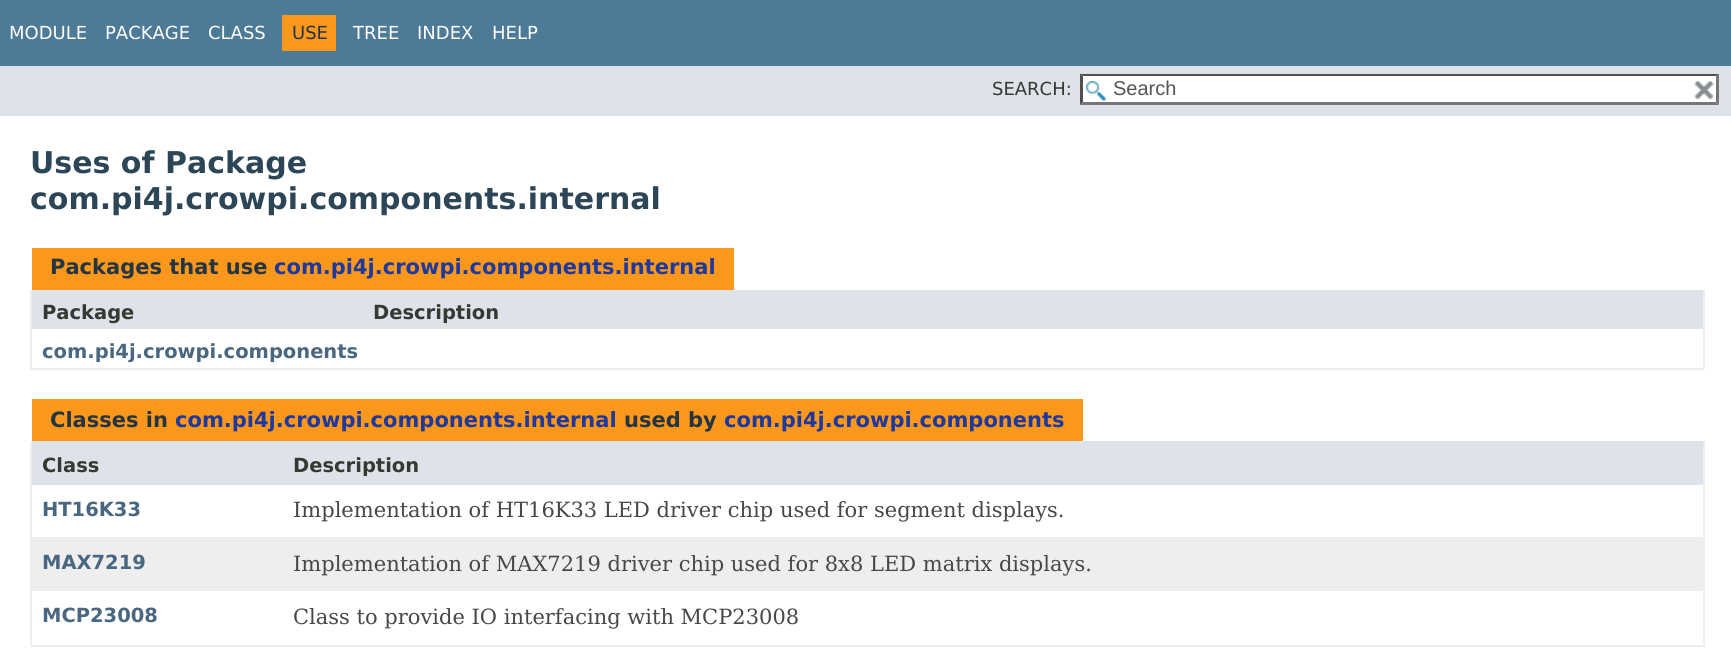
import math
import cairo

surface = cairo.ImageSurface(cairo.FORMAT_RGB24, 1731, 659)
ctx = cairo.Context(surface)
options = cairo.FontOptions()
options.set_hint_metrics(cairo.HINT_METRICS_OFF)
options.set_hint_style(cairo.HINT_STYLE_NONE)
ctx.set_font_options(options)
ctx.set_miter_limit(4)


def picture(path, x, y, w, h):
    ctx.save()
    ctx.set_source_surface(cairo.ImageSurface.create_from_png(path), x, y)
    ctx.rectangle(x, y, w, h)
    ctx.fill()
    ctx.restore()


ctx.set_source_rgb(1, 1, 1)
ctx.paint()
ctx.set_source_rgb(0.302, 0.478, 0.592)
ctx.rectangle(0, 0, 1731, 66)
ctx.fill()
ctx.select_font_face("DejaVu Sans")
ctx.set_font_size(18)
ctx.set_source_rgb(1, 1, 1)
ctx.move_to(9, 39)
ctx.show_text("MODULE")
ctx.move_to(105, 39)
ctx.show_text("PACKAGE")
ctx.move_to(208, 39)
ctx.show_text("CLASS")
ctx.set_source_rgb(0.973, 0.596, 0.114)
ctx.rectangle(282, 15, 54, 36)
ctx.fill()
ctx.set_source_rgb(0.145, 0.204, 0.255)
ctx.move_to(292, 39)
ctx.show_text("USE")
ctx.set_source_rgb(1, 1, 1)
ctx.move_to(353, 39)
ctx.show_text("TREE")
ctx.move_to(417, 39)
ctx.show_text("INDEX")
ctx.move_to(492, 39)
ctx.show_text("HELP")
ctx.set_source_rgb(0.871, 0.89, 0.914)
ctx.rectangle(0, 66, 1731, 50)
ctx.fill()
ctx.set_source_rgb(0.208, 0.22, 0.2)
ctx.move_to(992, 95)
ctx.show_text("SEARCH:")
ctx.set_source_rgb(1, 1, 1)
ctx.rectangle(1080, 74, 639, 31)
ctx.fill()
picture("img1.png", 1086, 81, 20, 20)
ctx.set_source_rgb(0.31, 0.31, 0.31)
ctx.new_path()
ctx.move_to(1080, 74)
ctx.line_to(1719, 74)
ctx.line_to(1716, 76)
ctx.line_to(1083, 76)
ctx.close_path()
ctx.fill()
ctx.set_source_rgb(0.463, 0.463, 0.463)
ctx.new_path()
ctx.move_to(1719, 73.5)
ctx.line_to(1719, 105)
ctx.line_to(1716, 102)
ctx.line_to(1716, 76.5)
ctx.close_path()
ctx.fill()
ctx.new_path()
ctx.move_to(1719, 105)
ctx.line_to(1080, 105)
ctx.line_to(1083, 102)
ctx.line_to(1716, 102)
ctx.close_path()
ctx.fill()
ctx.set_source_rgb(0.31, 0.31, 0.31)
ctx.new_path()
ctx.move_to(1080, 105)
ctx.line_to(1080, 73.5)
ctx.line_to(1083, 76.5)
ctx.line_to(1083, 102)
ctx.close_path()
ctx.fill()
ctx.select_font_face("Liberation Sans")
ctx.set_font_size(20)
ctx.set_source_rgb(0.329, 0.329, 0.329)
ctx.move_to(1113, 95)
ctx.show_text("Search")
picture("img2.png", 1694, 81, 20, 19)
ctx.select_font_face("DejaVu Sans", cairo.FONT_SLANT_NORMAL, cairo.FONT_WEIGHT_BOLD)
ctx.set_font_size(30)
ctx.set_source_rgb(0.173, 0.271, 0.341)
ctx.move_to(30, 173)
ctx.show_text("Uses of Package")
ctx.move_to(30, 209)
ctx.show_text("com.pi4j.crowpi.components.internal")
ctx.set_source_rgb(0.973, 0.596, 0.114)
ctx.rectangle(32, 248, 702, 42)
ctx.fill()
ctx.set_font_size(21)
ctx.set_source_rgb(0.145, 0.204, 0.255)
ctx.move_to(50, 274)
ctx.show_text("Packages that use")
ctx.set_source_rgb(0.122, 0.22, 0.612)
ctx.move_to(274, 274)
ctx.show_text("com.pi4j.crowpi.components.internal")
ctx.set_source_rgb(0.933, 0.933, 0.933)
ctx.rectangle(1703, 290, 2, 79)
ctx.fill()
ctx.rectangle(30, 368, 1674, 2)
ctx.fill()
ctx.rectangle(30, 290, 2, 79)
ctx.fill()
ctx.set_source_rgb(0.871, 0.89, 0.914)
ctx.rectangle(32, 290, 1671, 39)
ctx.fill()
ctx.set_font_size(19.5)
ctx.set_source_rgb(0.208, 0.22, 0.2)
ctx.move_to(42, 319)
ctx.show_text("Package")
ctx.move_to(373, 319)
ctx.show_text("Description")
ctx.set_source_rgb(0.29, 0.404, 0.51)
ctx.move_to(42, 358)
ctx.show_text("com.pi4j.crowpi.components")
ctx.set_source_rgb(0.973, 0.596, 0.114)
ctx.rectangle(32, 399, 1051, 42)
ctx.fill()
ctx.set_font_size(21)
ctx.set_source_rgb(0.145, 0.204, 0.255)
ctx.move_to(50, 427)
ctx.show_text("Classes in")
ctx.set_source_rgb(0.122, 0.22, 0.612)
ctx.move_to(175, 427)
ctx.show_text("com.pi4j.crowpi.components.internal")
ctx.set_source_rgb(0.145, 0.204, 0.255)
ctx.move_to(624, 427)
ctx.show_text("used by")
ctx.set_source_rgb(0.122, 0.22, 0.612)
ctx.move_to(724, 427)
ctx.show_text("com.pi4j.crowpi.components")
ctx.set_source_rgb(0.933, 0.933, 0.933)
ctx.rectangle(1703, 441, 2, 206)
ctx.fill()
ctx.rectangle(30, 645, 1674, 2)
ctx.fill()
ctx.rectangle(30, 441, 2, 206)
ctx.fill()
ctx.set_source_rgb(0.871, 0.89, 0.914)
ctx.rectangle(32, 441, 1671, 44)
ctx.fill()
ctx.set_font_size(19.5)
ctx.set_source_rgb(0.208, 0.22, 0.2)
ctx.move_to(42, 472)
ctx.show_text("Class")
ctx.move_to(293, 472)
ctx.show_text("Description")
ctx.set_source_rgb(0.29, 0.404, 0.51)
ctx.move_to(42, 516)
ctx.show_text("HT16K33")
ctx.select_font_face("DejaVu Serif")
ctx.set_font_size(21)
ctx.set_source_rgb(0.278, 0.278, 0.278)
ctx.move_to(293, 517)
ctx.show_text("Implementation of HT16K33 LED driver chip used for segment displays.")
ctx.set_source_rgb(0.933, 0.933, 0.937)
ctx.rectangle(32, 537, 1671, 54)
ctx.fill()
ctx.select_font_face("DejaVu Sans", cairo.FONT_SLANT_NORMAL, cairo.FONT_WEIGHT_BOLD)
ctx.set_font_size(19.5)
ctx.set_source_rgb(0.29, 0.404, 0.51)
ctx.move_to(42, 569)
ctx.show_text("MAX7219")
ctx.select_font_face("DejaVu Serif")
ctx.set_font_size(21)
ctx.set_source_rgb(0.278, 0.278, 0.278)
ctx.move_to(293, 571)
ctx.show_text("Implementation of MAX7219 driver chip used for 8x8 LED matrix displays.")
ctx.select_font_face("DejaVu Sans", cairo.FONT_SLANT_NORMAL, cairo.FONT_WEIGHT_BOLD)
ctx.set_font_size(19.5)
ctx.set_source_rgb(0.29, 0.404, 0.51)
ctx.move_to(42, 622)
ctx.show_text("MCP23008")
ctx.select_font_face("DejaVu Serif")
ctx.set_font_size(21)
ctx.set_source_rgb(0.278, 0.278, 0.278)
ctx.move_to(293, 624)
ctx.show_text("Class to provide IO interfacing with MCP23008")
surface.write_to_png("page.png")
